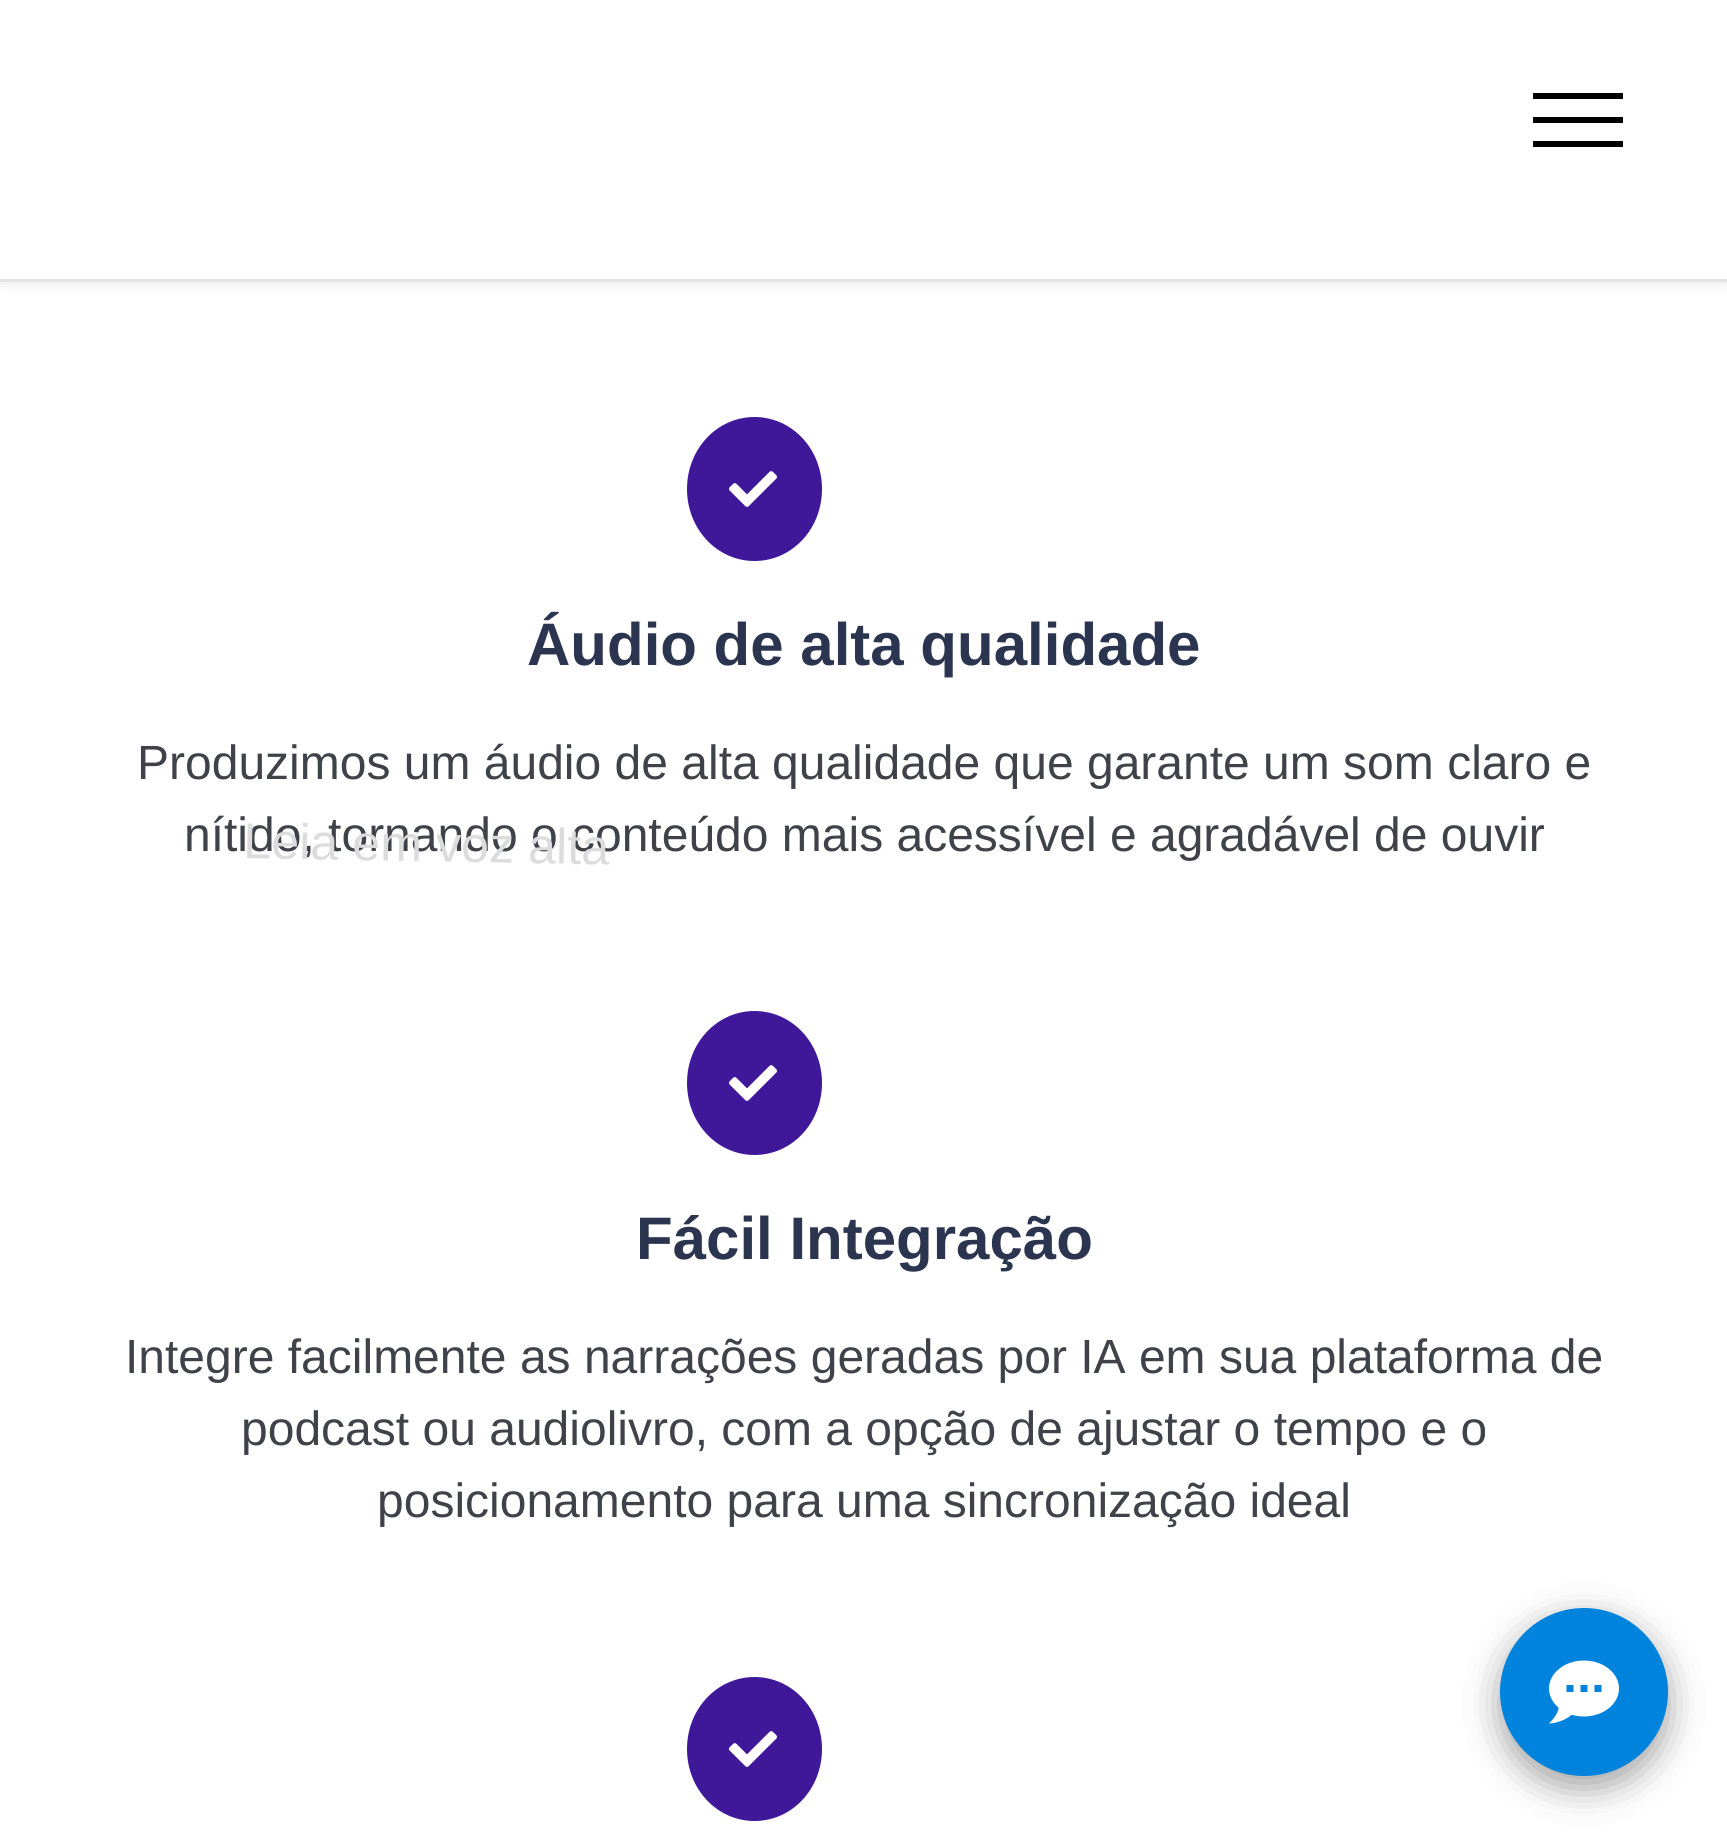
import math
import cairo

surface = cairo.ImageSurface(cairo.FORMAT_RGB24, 1727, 1834)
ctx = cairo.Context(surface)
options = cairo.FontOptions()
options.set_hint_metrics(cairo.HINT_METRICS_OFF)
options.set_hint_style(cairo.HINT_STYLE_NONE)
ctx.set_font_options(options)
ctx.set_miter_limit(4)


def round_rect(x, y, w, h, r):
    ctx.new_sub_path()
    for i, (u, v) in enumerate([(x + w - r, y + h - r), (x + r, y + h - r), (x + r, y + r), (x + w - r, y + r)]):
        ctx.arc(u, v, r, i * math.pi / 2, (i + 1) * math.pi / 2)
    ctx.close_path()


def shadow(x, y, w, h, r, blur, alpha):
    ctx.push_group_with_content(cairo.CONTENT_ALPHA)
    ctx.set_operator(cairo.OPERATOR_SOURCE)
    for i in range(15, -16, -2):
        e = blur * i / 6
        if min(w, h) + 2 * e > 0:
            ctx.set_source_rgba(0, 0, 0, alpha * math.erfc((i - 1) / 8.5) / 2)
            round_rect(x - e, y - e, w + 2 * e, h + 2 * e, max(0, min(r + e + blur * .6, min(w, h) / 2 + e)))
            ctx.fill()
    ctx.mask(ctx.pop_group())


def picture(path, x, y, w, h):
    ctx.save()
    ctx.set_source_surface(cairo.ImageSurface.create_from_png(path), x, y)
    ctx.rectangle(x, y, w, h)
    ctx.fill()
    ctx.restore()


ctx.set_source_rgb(1, 1, 1)
ctx.paint()
ctx.set_source_rgb(0.247, 0.094, 0.604)
ctx.new_path()
ctx.move_to(754.5, 417)
ctx.curve_to(792, 417, 822, 449, 822, 489)
ctx.curve_to(822, 529, 792, 561, 754.5, 561)
ctx.curve_to(717, 561, 687, 529, 687, 489)
ctx.curve_to(687, 449, 717, 417, 754.5, 417)
ctx.close_path()
ctx.fill()
picture("img1.png", 729, 471, 48, 36)
ctx.select_font_face("Liberation Sans", cairo.FONT_SLANT_NORMAL, cairo.FONT_WEIGHT_BOLD)
ctx.set_font_size(60)
ctx.set_source_rgb(0.169, 0.208, 0.31)
ctx.move_to(527, 665)
ctx.show_text("Áudio de alta qualidade")
ctx.select_font_face("Liberation Sans")
ctx.set_font_size(48)
ctx.set_source_rgb(0.247, 0.259, 0.282)
ctx.move_to(137, 779)
ctx.show_text("Produzimos um áudio de alta qualidade que garante um som claro e")
ctx.move_to(184, 851)
ctx.show_text("nítido, tornando o conteúdo mais acessível e agradável de ouvir")
ctx.set_source_rgb(0.247, 0.094, 0.604)
ctx.new_path()
ctx.move_to(754.5, 1011)
ctx.curve_to(792, 1011, 822, 1043, 822, 1083)
ctx.curve_to(822, 1123, 792, 1155, 754.5, 1155)
ctx.curve_to(717, 1155, 687, 1123, 687, 1083)
ctx.curve_to(687, 1043, 717, 1011, 754.5, 1011)
ctx.close_path()
ctx.fill()
picture("img1.png", 729, 1065, 48, 36)
ctx.select_font_face("Liberation Sans", cairo.FONT_SLANT_NORMAL, cairo.FONT_WEIGHT_BOLD)
ctx.set_font_size(60)
ctx.set_source_rgb(0.169, 0.208, 0.31)
ctx.move_to(636, 1259)
ctx.show_text("Fácil Integração")
ctx.select_font_face("Liberation Sans")
ctx.set_font_size(48)
ctx.set_source_rgb(0.247, 0.259, 0.282)
ctx.move_to(125, 1373)
ctx.show_text("Integre facilmente as narrações geradas por IA em sua plataforma de")
ctx.move_to(241, 1445)
ctx.show_text("podcast ou audiolivro, com a opção de ajustar o tempo e o")
ctx.move_to(377, 1517)
ctx.show_text("posicionamento para uma sincronização ideal")
ctx.set_source_rgb(0.247, 0.094, 0.604)
ctx.new_path()
ctx.move_to(754.5, 1677)
ctx.curve_to(792, 1677, 822, 1709, 822, 1749)
ctx.curve_to(822, 1789, 792, 1821, 754.5, 1821)
ctx.curve_to(717, 1821, 687, 1789, 687, 1749)
ctx.curve_to(687, 1709, 717, 1677, 754.5, 1677)
ctx.close_path()
ctx.fill()
picture("img1.png", 729, 1731, 48, 36)
ctx.set_source_rgb(0, 0, 0)
shadow(0, 0, 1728, 282, 0, 7.5, 0.11)
ctx.set_source_rgb(1, 1, 1)
ctx.rectangle(0, 0, 1727, 279)
ctx.fill()
ctx.set_source_rgb(0.89, 0.89, 0.89)
ctx.rectangle(0, 279, 1727, 3)
ctx.fill()
ctx.set_source_rgb(0, 0, 0)
ctx.rectangle(1533, 93, 90, 6)
ctx.fill()
ctx.rectangle(1533, 117, 90, 6)
ctx.fill()
ctx.rectangle(1533, 141, 90, 6)
ctx.fill()
ctx.set_font_size(50.25)
ctx.set_source_rgb(0.863, 0.863, 0.867)
ctx.save()
ctx.translate(243, 858)
ctx.rotate(1 * math.pi / 180)
ctx.move_to(0, 0)
ctx.show_text("Leia em voz alta")
ctx.restore()
ctx.set_source_rgb(0, 0, 0)
shadow(1500, 1620, 168, 168, 84, 18, 0.2)
shadow(1500, 1620, 168, 168, 84, 18, 0.2)
ctx.set_source_rgb(0, 0.514, 0.867)
ctx.arc(1584, 1692, 84, 0, 2 * math.pi)
ctx.fill()
picture("img2.png", 1549, 1660, 70, 64)
surface.write_to_png("page.png")
